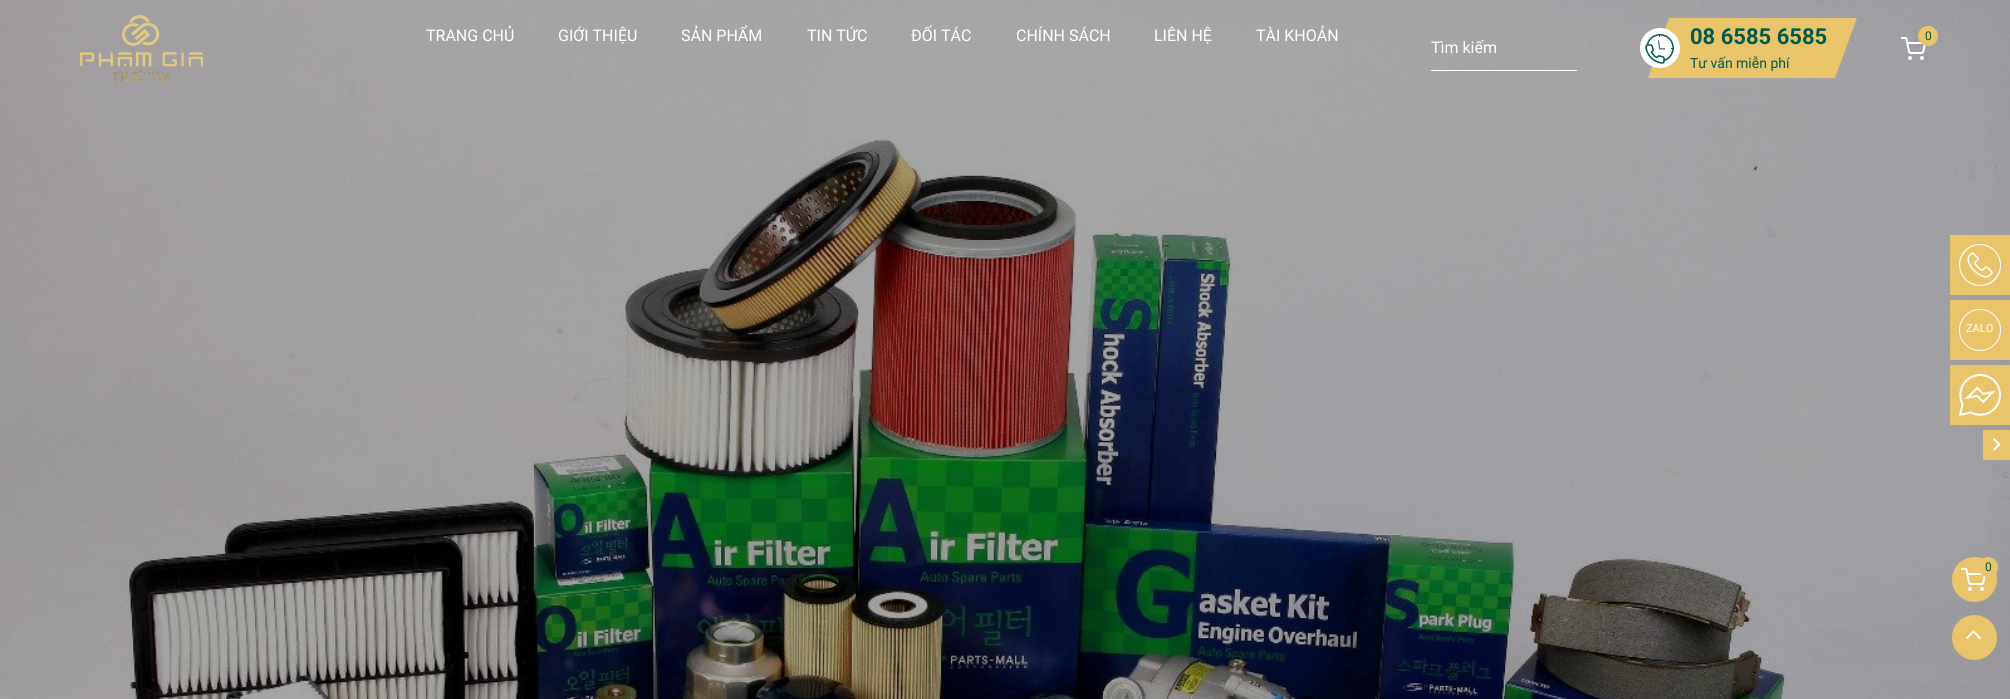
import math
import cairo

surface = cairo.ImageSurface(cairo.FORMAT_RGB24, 2010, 699)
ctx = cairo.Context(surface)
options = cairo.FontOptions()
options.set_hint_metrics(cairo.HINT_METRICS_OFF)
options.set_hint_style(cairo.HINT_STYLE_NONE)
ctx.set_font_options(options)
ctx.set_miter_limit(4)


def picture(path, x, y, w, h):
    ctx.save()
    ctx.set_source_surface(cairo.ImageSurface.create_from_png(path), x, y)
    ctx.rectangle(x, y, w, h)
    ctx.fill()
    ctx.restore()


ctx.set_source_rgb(1, 1, 1)
ctx.paint()
picture("img1.png", 0, 0, 2010, 699)
picture("img2.png", 80, 15, 123, 66)
ctx.select_font_face("Roboto")
ctx.set_font_size(16)
ctx.set_source_rgb(1, 1, 1)
ctx.move_to(426, 41)
ctx.show_text("TRANG CHỦ")
ctx.move_to(558, 41)
ctx.show_text("GIỚI THIỆU")
ctx.move_to(681, 41)
ctx.show_text("SẢN PHẨM")
ctx.move_to(807, 41)
ctx.show_text("TIN TỨC")
ctx.move_to(911, 41)
ctx.show_text("ĐỐI TÁC")
ctx.move_to(1016, 41)
ctx.show_text("CHÍNH SÁCH")
ctx.move_to(1154, 41)
ctx.show_text("LIÊN HỆ")
ctx.move_to(1256, 41)
ctx.show_text("TÀI KHOẢN")
ctx.rectangle(1431, 70, 146, 1)
ctx.fill()
ctx.move_to(1431, 53)
ctx.show_text("Tìm kiếm")
ctx.set_source_rgb(0.914, 0.769, 0.416)
ctx.new_path()
ctx.move_to(1669, 18)
ctx.line_to(1857, 18)
ctx.line_to(1835, 78)
ctx.line_to(1648, 78)
ctx.close_path()
ctx.fill()
picture("img3.png", 1640, 28, 40, 40)
ctx.select_font_face("Roboto", cairo.FONT_SLANT_NORMAL, cairo.FONT_WEIGHT_BOLD)
ctx.set_font_size(22)
ctx.set_source_rgb(0.004, 0.353, 0.298)
ctx.move_to(1690, 44)
ctx.show_text("08 6585 6585")
ctx.select_font_face("Roboto")
ctx.set_font_size(14)
ctx.move_to(1690, 68)
ctx.show_text("Tư vấn miễn phí")
picture("img4.png", 1901, 37, 25, 23)
ctx.set_source_rgb(0.914, 0.769, 0.416)
ctx.arc(1928, 36, 10, 0, 2 * math.pi)
ctx.fill()
ctx.set_font_size(12)
ctx.set_source_rgb(0.004, 0.353, 0.298)
ctx.move_to(1925, 40)
ctx.show_text("0")
ctx.set_source_rgb(0.914, 0.769, 0.416)
ctx.rectangle(1950, 235, 60, 60)
ctx.fill()
picture("img5.png", 1959, 244, 42, 42)
ctx.rectangle(1950, 300, 60, 60)
ctx.fill()
ctx.arc(1980, 330, 20.5, 0, 2 * math.pi)
ctx.set_source_rgb(1, 1, 1)
ctx.set_line_width(1)
ctx.stroke()
ctx.set_font_size(11)
ctx.move_to(1966, 332)
ctx.show_text("ZALO")
ctx.set_source_rgb(0.914, 0.769, 0.416)
ctx.rectangle(1950, 365, 60, 60)
ctx.fill()
picture("img6.png", 1959, 374, 42, 42)
ctx.rectangle(1983, 430, 27, 30)
ctx.fill()
picture("img7.png", 1993, 438, 8, 13)
ctx.arc(1974.5, 579.5, 22.5, 0, 2 * math.pi)
ctx.fill()
picture("img8.png", 1961, 568, 25, 23)
ctx.arc(1988, 567, 10, 0, 2 * math.pi)
ctx.fill()
ctx.set_font_size(12)
ctx.set_source_rgb(0.004, 0.353, 0.298)
ctx.move_to(1985, 571)
ctx.show_text("0")
ctx.set_source_rgb(0.914, 0.769, 0.416)
ctx.new_path()
ctx.arc(1974.5, 637.5, 22.5, 0, 2 * math.pi)
ctx.fill()
picture("img9.png", 1966, 630, 15, 10)
surface.write_to_png("page.png")
